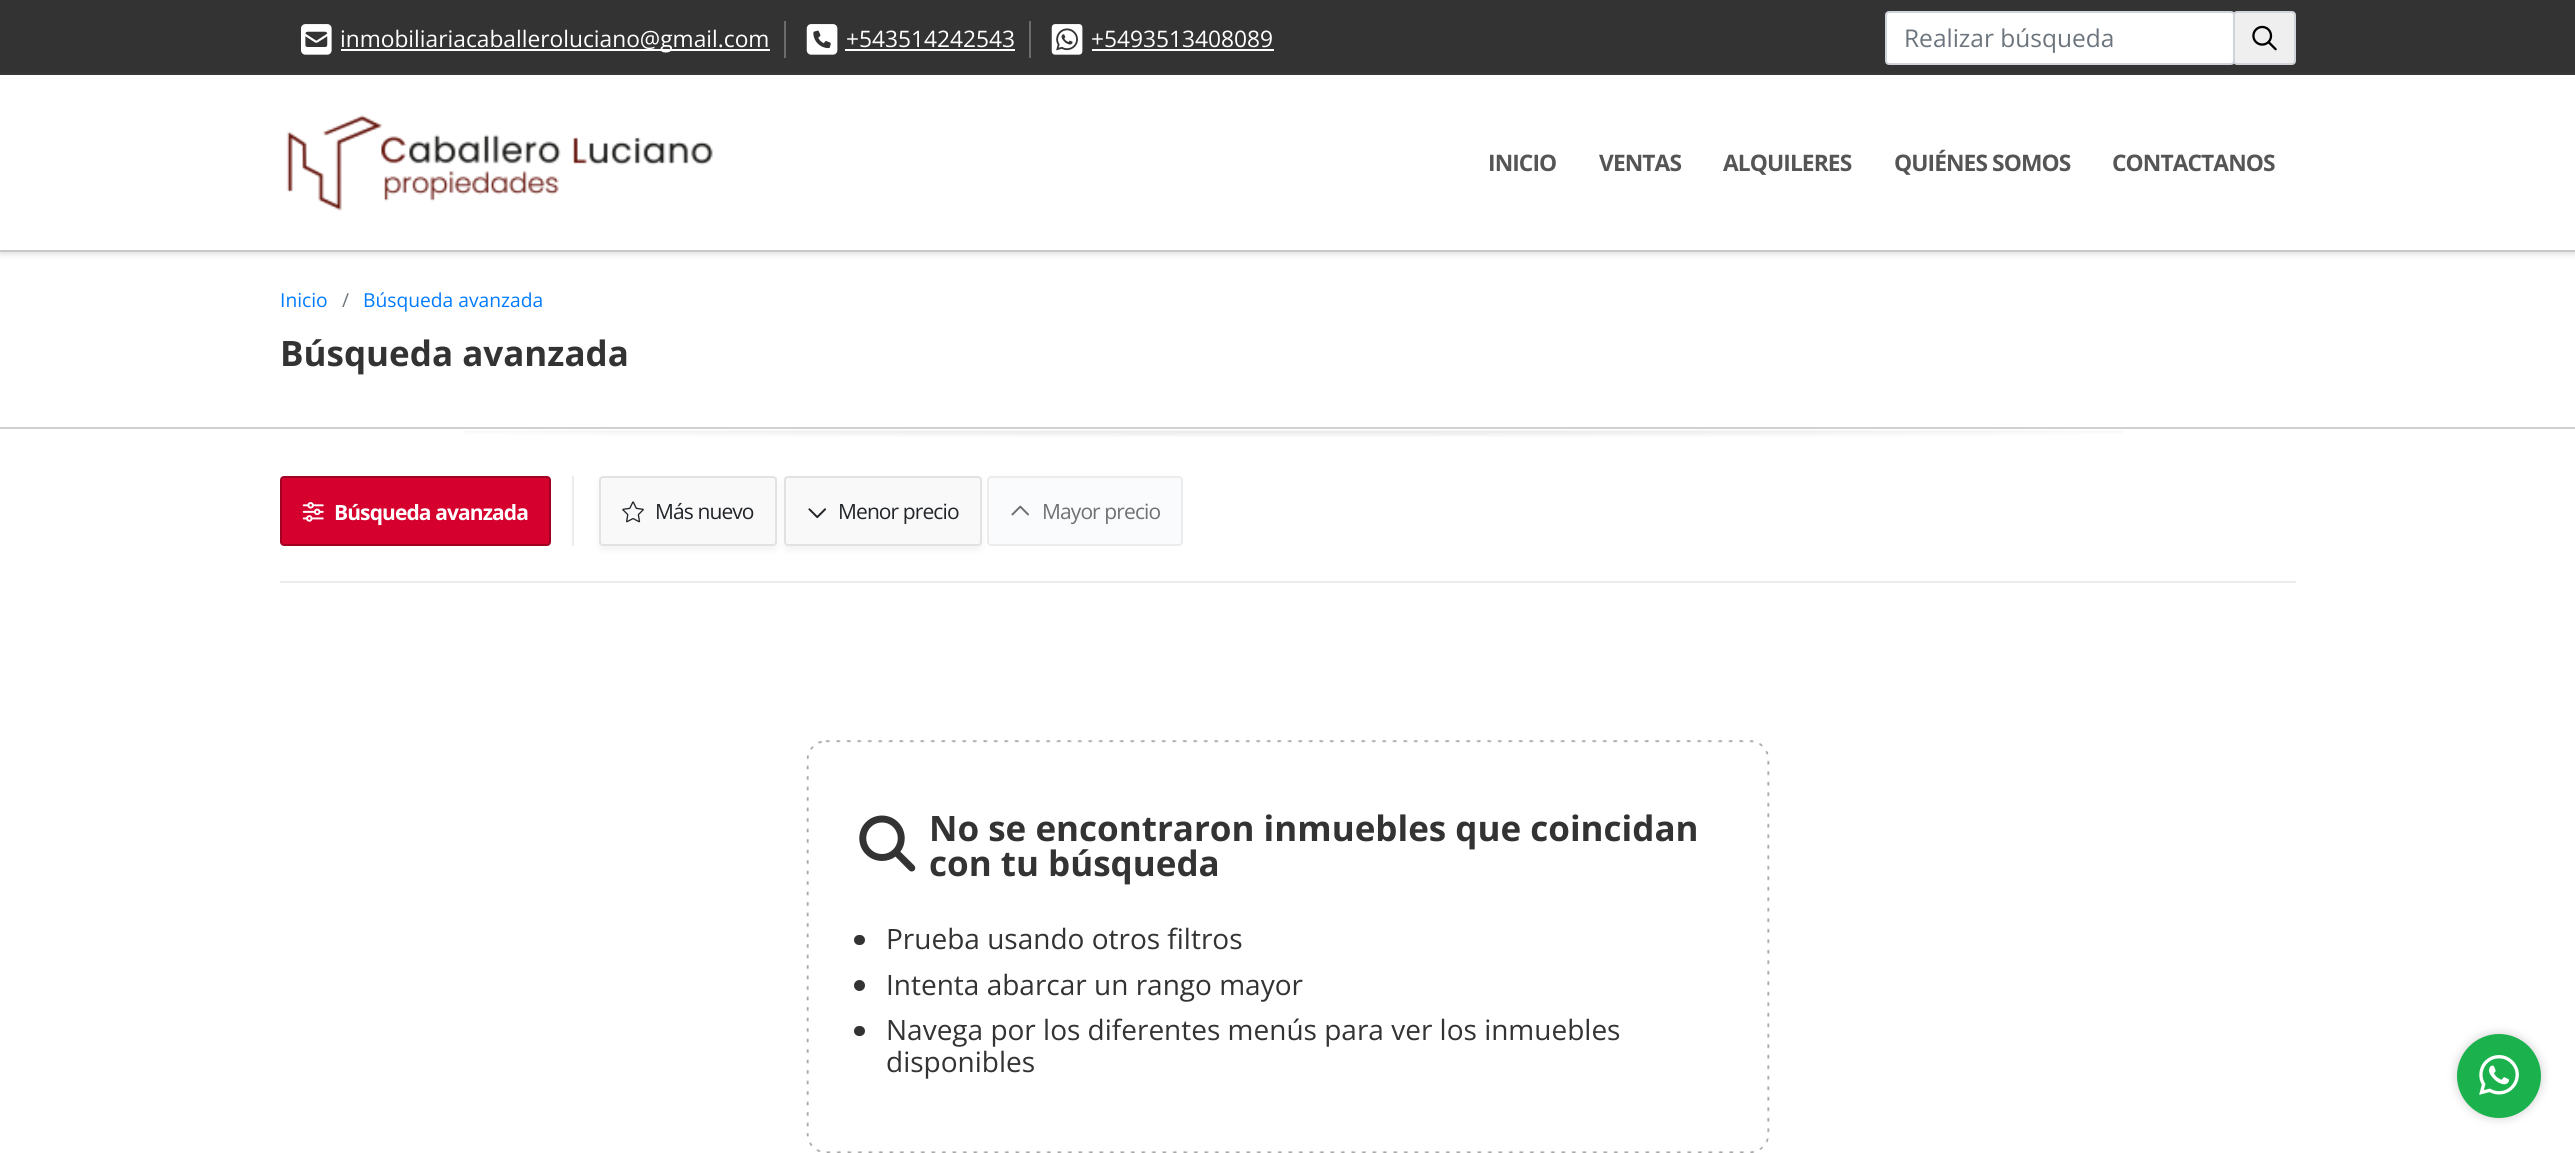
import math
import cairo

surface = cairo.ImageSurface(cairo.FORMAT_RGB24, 2575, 1153)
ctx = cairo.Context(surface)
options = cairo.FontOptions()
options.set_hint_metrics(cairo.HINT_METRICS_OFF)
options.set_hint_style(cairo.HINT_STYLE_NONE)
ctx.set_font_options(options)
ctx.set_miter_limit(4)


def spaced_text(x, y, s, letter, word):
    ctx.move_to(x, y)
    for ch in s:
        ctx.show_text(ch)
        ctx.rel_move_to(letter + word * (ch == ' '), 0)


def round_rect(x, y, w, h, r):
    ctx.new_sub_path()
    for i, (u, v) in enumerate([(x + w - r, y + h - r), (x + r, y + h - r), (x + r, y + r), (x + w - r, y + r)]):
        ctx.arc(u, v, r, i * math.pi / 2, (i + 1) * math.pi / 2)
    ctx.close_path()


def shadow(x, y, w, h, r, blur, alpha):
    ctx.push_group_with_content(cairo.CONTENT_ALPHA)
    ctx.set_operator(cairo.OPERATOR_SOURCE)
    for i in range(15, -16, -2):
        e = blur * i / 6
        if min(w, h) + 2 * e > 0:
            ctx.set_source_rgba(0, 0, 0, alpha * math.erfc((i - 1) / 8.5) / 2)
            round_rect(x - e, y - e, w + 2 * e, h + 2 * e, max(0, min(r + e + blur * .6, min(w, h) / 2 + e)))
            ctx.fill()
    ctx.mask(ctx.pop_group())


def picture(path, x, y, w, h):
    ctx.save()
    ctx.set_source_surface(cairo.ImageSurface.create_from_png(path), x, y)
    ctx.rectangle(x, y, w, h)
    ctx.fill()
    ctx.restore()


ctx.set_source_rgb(1, 1, 1)
ctx.paint()
ctx.set_source_rgb(0.2, 0.2, 0.2)
ctx.rectangle(0, 0, 2575, 75)
ctx.fill()
ctx.set_source_rgb(0.424, 0.424, 0.424)
ctx.rectangle(784, 21, 2, 37)
ctx.fill()
picture("img1.png", 301, 24, 31, 31)
ctx.set_source_rgb(1, 1, 1)
ctx.rectangle(341, 49, 429, 2)
ctx.fill()
ctx.select_font_face("Open Sans")
ctx.set_font_size(22.75)
ctx.move_to(340, 47)
ctx.show_text("inmobiliariacaballeroluciano@gmail.com")
ctx.set_source_rgb(0.424, 0.424, 0.424)
ctx.rectangle(1029, 21, 2, 37)
ctx.fill()
picture("img2.png", 806, 24, 32, 31)
ctx.set_source_rgb(1, 1, 1)
ctx.move_to(846, 47)
ctx.show_text("+543514242543")
ctx.rectangle(845, 49, 170, 2)
ctx.fill()
picture("img3.png", 1051, 24, 32, 31)
ctx.move_to(1091, 47)
ctx.show_text("+5493513408089")
ctx.rectangle(1092, 49, 182, 2)
ctx.fill()
round_rect(1886, 12, 348, 52, 3)
ctx.fill_preserve()
ctx.set_source_rgb(0.808, 0.831, 0.855)
ctx.stroke()
ctx.set_font_size(24.5)
ctx.set_source_rgb(0.424, 0.459, 0.49)
ctx.move_to(1904, 47)
ctx.show_text("Realizar búsqueda")
ctx.set_source_rgb(0.937, 0.937, 0.937)
round_rect(2234, 12, 61, 52, 3)
ctx.fill_preserve()
ctx.set_source_rgb(0.808, 0.831, 0.855)
ctx.stroke()
picture("img4.png", 2252, 25, 25, 26)
ctx.set_source_rgb(0.816, 0.816, 0.816)
ctx.rectangle(0, 250, 2575, 2)
ctx.fill()
ctx.save()
ctx.set_fill_rule(cairo.FILL_RULE_EVEN_ODD)
ctx.new_path()
ctx.move_to(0, 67)
ctx.line_to(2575, 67)
ctx.line_to(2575, 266)
ctx.line_to(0, 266)
ctx.close_path()
ctx.move_to(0, 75)
ctx.line_to(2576, 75)
ctx.line_to(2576, 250)
ctx.line_to(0, 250)
ctx.close_path()
ctx.clip()
ctx.set_source_rgb(0.729, 0.729, 0.729)
shadow(0, 79, 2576, 175, 0, 3.5, 0.5)
ctx.restore()
picture("img5.png", 286, 115, 427, 96)
ctx.select_font_face("Open Sans", cairo.FONT_SLANT_NORMAL, cairo.FONT_WEIGHT_BOLD)
ctx.set_font_size(22.75)
ctx.set_source_rgb(0.333, 0.333, 0.333)
spaced_text(1488, 171, "INICIO", -0.9, 0)
spaced_text(1599, 171, "VENTAS", -0.9, 0)
spaced_text(1723, 171, "ALQUILERES", -0.9, 0)
spaced_text(1894, 171, "QUIÉNES SOMOS", -0.9, 0)
spaced_text(2112, 171, "CONTACTANOS", -0.9, 0)
ctx.set_source_rgb(0.816, 0.816, 0.816)
ctx.rectangle(0, 427, 2575, 2)
ctx.fill()
ctx.select_font_face("Open Sans")
ctx.set_font_size(19.25)
ctx.set_source_rgb(0, 0.482, 1)
ctx.move_to(280, 307)
ctx.show_text("Inicio")
ctx.set_source_rgb(0.424, 0.459, 0.49)
ctx.move_to(342, 307)
ctx.show_text("/")
ctx.set_source_rgb(0, 0.482, 1)
ctx.move_to(363, 307)
ctx.show_text("Búsqueda avanzada")
ctx.select_font_face("Open Sans", cairo.FONT_SLANT_NORMAL, cairo.FONT_WEIGHT_BOLD)
ctx.set_font_size(35)
ctx.set_source_rgb(0.2, 0.2, 0.2)
ctx.move_to(280, 366)
ctx.show_text("Búsqueda avanzada")
picture("img6.png", 465, 430, 1658, 7)
ctx.set_source_rgb(0.922, 0.922, 0.922)
ctx.rectangle(280, 581, 2016, 2)
ctx.fill()
ctx.rectangle(572, 476, 2, 70)
ctx.fill()
ctx.set_source_rgb(0.835, 0, 0.176)
round_rect(281, 477, 269, 68, 3)
ctx.fill_preserve()
ctx.set_source_rgb(0.635, 0, 0.133)
ctx.stroke()
picture("img7.png", 302, 502, 22, 20)
ctx.set_font_size(21)
ctx.set_source_rgb(1, 1, 1)
spaced_text(334, 520, "Búsqueda avanzada", -0.9, 0)
ctx.set_source_rgb(0, 0, 0)
shadow(599, 480, 178, 70, 4, 3.5, 0.05)
ctx.set_source_rgb(0.973, 0.976, 0.98)
round_rect(600, 477, 176, 68, 3)
ctx.fill_preserve()
ctx.set_source_rgb(0.886, 0.886, 0.886)
ctx.stroke()
picture("img8.png", 622, 501, 22, 22)
ctx.select_font_face("Open Sans")
ctx.set_source_rgb(0.129, 0.145, 0.161)
spaced_text(655, 519, "Más nuevo", -0.9, 0)
ctx.set_source_rgb(0, 0, 0)
shadow(784, 480, 198, 70, 4, 3.5, 0.05)
ctx.set_source_rgb(0.973, 0.976, 0.98)
round_rect(785, 477, 196, 68, 3)
ctx.fill_preserve()
ctx.set_source_rgb(0.886, 0.886, 0.886)
ctx.stroke()
picture("img9.png", 808, 508, 19, 11)
ctx.set_source_rgb(0.129, 0.145, 0.161)
spaced_text(838, 519, "Menor precio", -0.9, 0)
ctx.set_source_rgb(0.98, 0.984, 0.988)
round_rect(988, 477, 194, 68, 3)
ctx.fill_preserve()
ctx.set_source_rgb(0.925, 0.925, 0.925)
ctx.stroke()
picture("img10.png", 1011, 505, 18, 11)
ctx.set_source_rgb(0.435, 0.443, 0.455)
spaced_text(1042, 519, "Mayor precio", -0.9, 0)
picture("img11.png", 806, 740, 964, 413)
picture("img12.png", 859, 815, 57, 57)
ctx.select_font_face("Open Sans", cairo.FONT_SLANT_NORMAL, cairo.FONT_WEIGHT_BOLD)
ctx.set_font_size(35)
ctx.set_source_rgb(0.2, 0.2, 0.2)
ctx.move_to(929, 841)
ctx.show_text("No se encontraron inmuebles que coincidan")
ctx.move_to(929, 876)
ctx.show_text("con tu búsqueda")
round_rect(854, 935, 11, 10, 5)
ctx.fill()
ctx.select_font_face("Open Sans")
ctx.set_font_size(28)
ctx.move_to(886, 949)
ctx.show_text("Prueba usando otros filtros")
ctx.new_path()
ctx.arc(859.5, 985.5, 5.5, 0, 2 * math.pi)
ctx.fill()
ctx.move_to(886, 995)
ctx.show_text("Intenta abarcar un rango mayor")
round_rect(854, 1026, 11, 10, 5)
ctx.fill()
ctx.move_to(886, 1040)
ctx.show_text("Navega por los diferentes menús para ver los inmuebles")
ctx.move_to(886, 1072)
ctx.show_text("disponibles")
ctx.set_source_rgb(0, 0, 0)
shadow(2457, 1034, 84, 84, 42, 5, 0.2)
ctx.set_source_rgb(0.106, 0.698, 0.306)
ctx.arc(2499, 1076, 42, 0, 2 * math.pi)
ctx.fill()
picture("img13.png", 2479, 1055, 40, 40)
surface.write_to_png("page.png")
